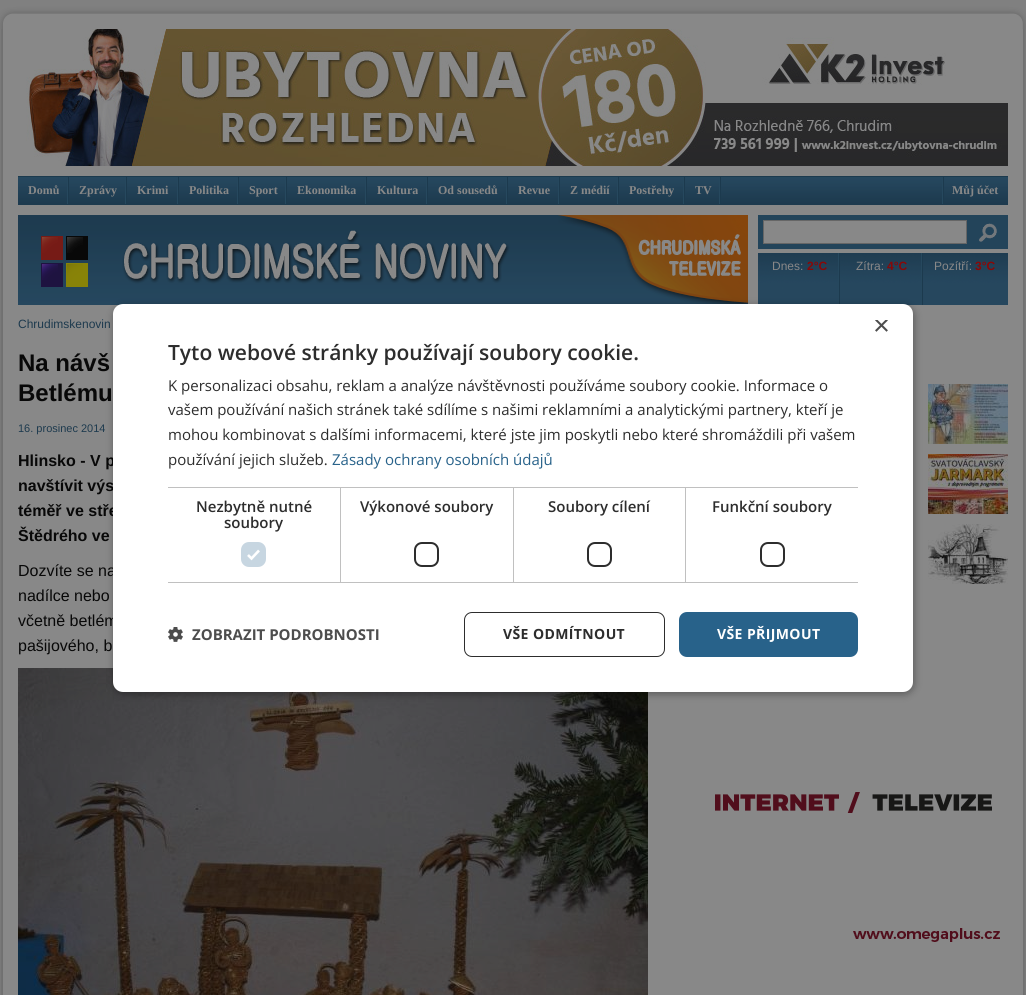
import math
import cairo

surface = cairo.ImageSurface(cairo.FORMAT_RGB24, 1026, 995)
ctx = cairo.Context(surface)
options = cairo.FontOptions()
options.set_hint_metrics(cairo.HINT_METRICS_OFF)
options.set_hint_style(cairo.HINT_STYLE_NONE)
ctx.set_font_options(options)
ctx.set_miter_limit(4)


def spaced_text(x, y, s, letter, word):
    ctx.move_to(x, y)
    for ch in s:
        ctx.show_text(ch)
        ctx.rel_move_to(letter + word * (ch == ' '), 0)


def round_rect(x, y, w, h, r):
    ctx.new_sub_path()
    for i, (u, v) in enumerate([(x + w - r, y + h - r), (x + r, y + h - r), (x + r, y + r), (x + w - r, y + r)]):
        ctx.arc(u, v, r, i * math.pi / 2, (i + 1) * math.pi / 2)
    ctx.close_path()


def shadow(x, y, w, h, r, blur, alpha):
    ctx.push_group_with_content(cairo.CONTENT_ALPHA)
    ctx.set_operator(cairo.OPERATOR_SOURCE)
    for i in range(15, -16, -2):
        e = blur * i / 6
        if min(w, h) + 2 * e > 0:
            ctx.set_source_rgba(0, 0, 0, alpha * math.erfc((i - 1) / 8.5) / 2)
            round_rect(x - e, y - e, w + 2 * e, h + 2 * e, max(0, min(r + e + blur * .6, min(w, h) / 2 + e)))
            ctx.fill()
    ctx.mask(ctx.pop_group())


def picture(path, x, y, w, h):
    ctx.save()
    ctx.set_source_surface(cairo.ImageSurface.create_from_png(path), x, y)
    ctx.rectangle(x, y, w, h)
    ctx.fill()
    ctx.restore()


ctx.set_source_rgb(1, 1, 1)
ctx.paint()
picture("img1.png", 0, 29, 1026, 966)
picture("img2.png", 0, 0, 1026, 29)
picture("img3.png", 26, 29, 982, 137)
picture("img4.png", 18, 176, 990, 29)
picture("img5.png", 67, 177, 2, 27)
ctx.select_font_face("Liberation Serif", cairo.FONT_SLANT_NORMAL, cairo.FONT_WEIGHT_BOLD)
ctx.set_font_size(12)
ctx.set_source_rgb(0.533, 0.533, 0.533)
ctx.move_to(28, 194)
ctx.show_text("Domů")
picture("img5.png", 125, 177, 2, 27)
ctx.move_to(79, 194)
ctx.show_text("Zprávy")
picture("img5.png", 177, 177, 2, 27)
ctx.move_to(137, 194)
ctx.show_text("Krimi")
picture("img5.png", 237, 177, 2, 27)
ctx.move_to(189, 194)
ctx.show_text("Politika")
picture("img5.png", 285, 177, 2, 27)
ctx.move_to(249, 194)
ctx.show_text("Sport")
picture("img5.png", 365, 177, 2, 27)
ctx.move_to(297, 194)
ctx.show_text("Ekonomika")
picture("img5.png", 426, 177, 2, 27)
ctx.move_to(377, 194)
ctx.show_text("Kultura")
picture("img5.png", 506, 177, 2, 27)
ctx.move_to(438, 194)
ctx.show_text("Od sousedů")
picture("img5.png", 558, 177, 2, 27)
ctx.move_to(518, 194)
ctx.show_text("Revue")
picture("img5.png", 617, 177, 2, 27)
ctx.move_to(570, 194)
ctx.show_text("Z médií")
picture("img5.png", 683, 177, 2, 27)
ctx.move_to(629, 194)
ctx.show_text("Postřehy")
picture("img5.png", 719, 177, 2, 27)
ctx.move_to(695, 194)
ctx.show_text("TV")
picture("img5.png", 942, 177, 2, 27)
ctx.move_to(952, 194)
ctx.show_text("Můj účet")
picture("img6.png", 18, 215, 540, 90)
picture("img7.png", 558, 215, 190, 89)
ctx.set_source_rgb(0.137, 0.267, 0.353)
ctx.rectangle(758, 215, 250, 34)
ctx.fill()
ctx.set_source_rgb(0.533, 0.533, 0.533)
ctx.rectangle(763.5, 220.5, 203, 23)
ctx.fill_preserve()
ctx.set_source_rgb(0.4, 0.4, 0.4)
ctx.set_line_width(1)
ctx.stroke()
picture("img8.png", 979, 223, 18, 19)
picture("img9.png", 758, 253, 250, 52)
ctx.select_font_face("Liberation Sans")
ctx.set_source_rgb(0.533, 0.533, 0.533)
ctx.move_to(772, 270)
ctx.show_text("Dnes:")
ctx.select_font_face("Liberation Sans", cairo.FONT_SLANT_NORMAL, cairo.FONT_WEIGHT_BOLD)
ctx.set_source_rgb(0.533, 0.035, 0.035)
ctx.move_to(807, 270)
ctx.show_text("2°C")
ctx.select_font_face("Liberation Sans")
ctx.set_source_rgb(0.533, 0.533, 0.533)
ctx.move_to(856, 270)
ctx.show_text("Zítra:")
ctx.select_font_face("Liberation Sans", cairo.FONT_SLANT_NORMAL, cairo.FONT_WEIGHT_BOLD)
ctx.set_source_rgb(0.533, 0.035, 0.035)
ctx.move_to(887, 270)
ctx.show_text("4°C")
ctx.select_font_face("Liberation Sans")
ctx.set_source_rgb(0.533, 0.533, 0.533)
ctx.move_to(934, 270)
ctx.show_text("Pozítří:")
ctx.select_font_face("Liberation Sans", cairo.FONT_SLANT_NORMAL, cairo.FONT_WEIGHT_BOLD)
ctx.set_source_rgb(0.533, 0.035, 0.035)
ctx.move_to(975, 270)
ctx.show_text("3°C")
ctx.select_font_face("Liberation Sans")
ctx.set_source_rgb(0.114, 0.227, 0.306)
ctx.move_to(18, 328)
ctx.show_text("Chrudimskenovin")
ctx.select_font_face("Liberation Sans", cairo.FONT_SLANT_NORMAL, cairo.FONT_WEIGHT_BOLD)
ctx.set_font_size(24)
ctx.set_source_rgb(0.035, 0.035, 0.035)
ctx.move_to(18, 371)
ctx.show_text("Na návš")
ctx.move_to(18, 401)
ctx.show_text("Betlému")
ctx.select_font_face("Liberation Sans")
ctx.set_font_size(11)
ctx.set_source_rgb(0.114, 0.227, 0.306)
ctx.move_to(18, 432)
ctx.show_text("16. prosinec 2014")
ctx.select_font_face("Liberation Sans", cairo.FONT_SLANT_NORMAL, cairo.FONT_WEIGHT_BOLD)
ctx.set_font_size(16)
ctx.set_source_rgb(0.035, 0.035, 0.035)
ctx.move_to(18, 466)
ctx.show_text("Hlinsko - V p")
ctx.move_to(18, 491)
ctx.show_text("navštívit výs")
ctx.move_to(18, 516)
ctx.show_text("téměř ve stře")
ctx.move_to(18, 541)
ctx.show_text("Štědrého ve")
ctx.select_font_face("Liberation Sans")
ctx.move_to(18, 576)
ctx.show_text("Dozvíte se na")
ctx.move_to(18, 601)
ctx.show_text("nadílce nebo")
ctx.move_to(18, 626)
ctx.show_text("včetně betlém")
ctx.move_to(18, 651)
ctx.show_text("pašijového, b")
picture("img10.png", 18, 668, 630, 327)
picture("img11.png", 928, 384, 80, 60)
picture("img12.png", 928, 454, 80, 60)
picture("img13.png", 928, 524, 80, 60)
picture("img14.png", 715, 664, 285, 278)
ctx.set_source_rgb(0, 0, 0)
shadow(114, 306, 800, 388, 10, 4, 0.35)
ctx.set_source_rgb(1, 1, 1)
round_rect(113, 304, 800, 388, 10)
ctx.fill()
ctx.save()
ctx.rectangle(873, 320, 15, 15)
ctx.clip()
ctx.set_font_size(29)
ctx.set_source_rgb(0.302, 0.302, 0.302)
ctx.move_to(873, 335)
ctx.show_text("×")
ctx.restore()
ctx.select_font_face("Open Sans SemiBold")
ctx.set_font_size(21)
ctx.set_source_rgb(0.176, 0.176, 0.176)
ctx.move_to(168, 360)
ctx.show_text("Tyto webové stránky používají soubory cookie.")
ctx.select_font_face("Open Sans")
ctx.set_font_size(15)
ctx.move_to(168, 391)
ctx.show_text("K personalizaci obsahu, reklam a analýze návštěvnosti používáme soubory cookie. Informace o")
ctx.move_to(168, 415)
ctx.show_text("vašem používání našich stránek také sdílíme s našimi reklamními a analytickými partnery, kteří je")
ctx.move_to(168, 440)
ctx.show_text("mohou kombinovat s dalšími informacemi, které jste jim poskytli nebo které shromáždili při vašem")
ctx.move_to(168, 465)
ctx.show_text("používání jejich služeb.")
ctx.set_source_rgb(0.157, 0.384, 0.541)
ctx.move_to(332, 465)
ctx.show_text("Zásady ochrany osobních údajů")
ctx.set_source_rgb(0.753, 0.753, 0.753)
ctx.rectangle(168, 487, 690, 1)
ctx.fill()
ctx.rectangle(340, 487, 1, 96)
ctx.fill()
ctx.rectangle(168, 582, 173, 1)
ctx.fill()
ctx.select_font_face("Open Sans SemiBold")
ctx.set_source_rgb(0.176, 0.176, 0.176)
ctx.move_to(196, 512)
ctx.show_text("Nezbytně nutné")
ctx.move_to(224, 528)
ctx.show_text("soubory")
ctx.set_source_rgb(0.78, 0.839, 0.882)
round_rect(241, 542, 25, 25, 8)
ctx.fill()
ctx.new_path()
ctx.move_to(248, 555)
ctx.line_to(251.5, 558.5)
ctx.line_to(259, 550.5)
ctx.set_source_rgb(1, 1, 1)
ctx.set_line_width(2.6)
ctx.stroke()
ctx.set_source_rgb(0.753, 0.753, 0.753)
ctx.rectangle(513, 487, 1, 96)
ctx.fill()
ctx.rectangle(341, 582, 173, 1)
ctx.fill()
ctx.set_source_rgb(0.176, 0.176, 0.176)
ctx.move_to(360, 512)
ctx.show_text("Výkonové soubory")
round_rect(415, 543, 23, 23, 7)
ctx.set_line_width(2)
ctx.stroke()
ctx.set_source_rgb(0.753, 0.753, 0.753)
ctx.rectangle(685, 487, 1, 96)
ctx.fill()
ctx.rectangle(514, 582, 344, 1)
ctx.fill()
ctx.set_source_rgb(0.176, 0.176, 0.176)
ctx.move_to(548, 512)
ctx.show_text("Soubory cílení")
round_rect(588, 543, 23, 23, 7)
ctx.stroke()
ctx.move_to(712, 512)
ctx.show_text("Funkční soubory")
round_rect(761, 543, 23, 23, 7)
ctx.stroke()
picture("img15.png", 168, 627, 15, 15)
ctx.select_font_face("Open Sans", cairo.FONT_SLANT_NORMAL, cairo.FONT_WEIGHT_BOLD)
ctx.set_source_rgb(0.302, 0.302, 0.302)
ctx.move_to(192, 640)
ctx.show_text("ZOBRAZIT PODROBNOSTI")
round_rect(464.5, 612.5, 200, 44, 7.5)
ctx.set_source_rgb(0.176, 0.176, 0.176)
ctx.set_line_width(1)
ctx.stroke()
ctx.set_font_size(14)
spaced_text(503, 639, "VŠE ODMÍTNOUT", 0.4, 0)
ctx.set_source_rgb(0.157, 0.384, 0.541)
round_rect(679, 612, 179, 45, 8)
ctx.fill()
ctx.set_source_rgb(1, 1, 1)
spaced_text(717, 639, "VŠE PŘIJMOUT", 0.4, 0)
surface.write_to_png("page.png")
